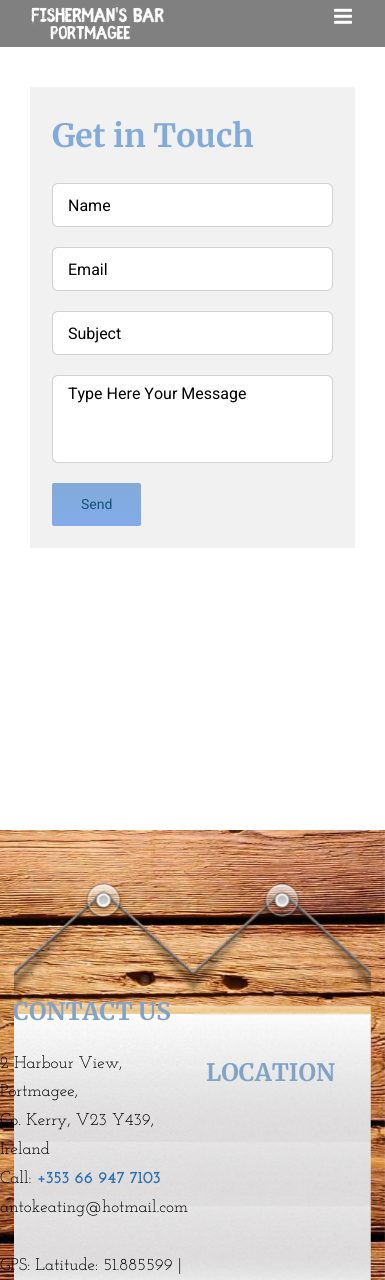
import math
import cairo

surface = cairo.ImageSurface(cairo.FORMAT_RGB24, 385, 1280)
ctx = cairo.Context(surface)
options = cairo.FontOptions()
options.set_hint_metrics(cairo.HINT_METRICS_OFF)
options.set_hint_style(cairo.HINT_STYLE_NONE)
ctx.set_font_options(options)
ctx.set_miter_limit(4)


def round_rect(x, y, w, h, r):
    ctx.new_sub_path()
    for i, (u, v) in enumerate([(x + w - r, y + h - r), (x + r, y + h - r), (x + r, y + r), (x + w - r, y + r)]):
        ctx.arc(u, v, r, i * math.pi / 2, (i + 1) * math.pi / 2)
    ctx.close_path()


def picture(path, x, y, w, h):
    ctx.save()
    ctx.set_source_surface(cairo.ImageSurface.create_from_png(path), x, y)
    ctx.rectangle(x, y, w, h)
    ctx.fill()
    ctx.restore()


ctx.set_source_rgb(1, 1, 1)
ctx.paint()
ctx.set_source_rgb(0.502, 0.502, 0.502)
ctx.rectangle(0, 0, 385, 47)
ctx.fill()
picture("img1.png", 31, 7, 133, 33)
picture("img2.png", 334, 8, 18, 16)
ctx.set_source_rgb(0.949, 0.945, 0.945)
ctx.rectangle(30, 87, 325, 461)
ctx.fill()
ctx.select_font_face("Merriweather", cairo.FONT_SLANT_NORMAL, cairo.FONT_WEIGHT_BOLD)
ctx.set_font_size(32)
ctx.set_source_rgb(0.51, 0.671, 0.851)
ctx.move_to(52, 147)
ctx.show_text("Get in Touch")
ctx.set_source_rgb(1, 1, 1)
round_rect(52.5, 183.5, 280, 43, 5.5)
ctx.fill_preserve()
ctx.set_source_rgb(0.824, 0.824, 0.824)
ctx.set_line_width(1)
ctx.stroke()
ctx.select_font_face("Roboto")
ctx.set_font_size(16)
ctx.set_source_rgb(0, 0, 0)
ctx.move_to(68, 211)
ctx.show_text("Name")
ctx.set_source_rgb(1, 1, 1)
round_rect(52.5, 247.5, 280, 43, 5.5)
ctx.fill_preserve()
ctx.set_source_rgb(0.824, 0.824, 0.824)
ctx.stroke()
ctx.set_source_rgb(0, 0, 0)
ctx.move_to(68, 275)
ctx.show_text("Email")
ctx.set_source_rgb(1, 1, 1)
round_rect(52.5, 311.5, 280, 43, 5.5)
ctx.fill_preserve()
ctx.set_source_rgb(0.824, 0.824, 0.824)
ctx.stroke()
ctx.set_source_rgb(0, 0, 0)
ctx.move_to(68, 339)
ctx.show_text("Subject")
ctx.set_source_rgb(1, 1, 1)
round_rect(52.5, 375.5, 280, 87, 5.5)
ctx.fill_preserve()
ctx.set_source_rgb(0.824, 0.824, 0.824)
ctx.stroke()
ctx.set_source_rgb(0, 0, 0)
ctx.move_to(68, 399)
ctx.show_text("Type Here Your Message")
gradient = cairo.LinearGradient(97, 483, 97, 526)
gradient.add_color_stop_rgba(0, 0.51, 0.671, 0.851, 1)
gradient.add_color_stop_rgba(1, 0.51, 0.671, 0.914, 1)
ctx.set_source(gradient)
round_rect(52, 483, 89, 43, 2)
ctx.fill()
ctx.set_font_size(14)
ctx.set_source_rgb(0.063, 0.325, 0.471)
ctx.move_to(81, 509)
ctx.show_text("Send")
picture("img3.png", 0, 830, 385, 450)
picture("img4.png", 14, 882, 179, 398)
ctx.select_font_face("Merriweather", cairo.FONT_SLANT_NORMAL, cairo.FONT_WEIGHT_BOLD)
ctx.set_font_size(24)
ctx.set_source_rgb(0.51, 0.639, 0.776)
ctx.move_to(13, 1020)
ctx.show_text("CONTACT US")
ctx.select_font_face("Josefin Slab")
ctx.set_font_size(17)
ctx.set_source_rgb(0, 0, 0)
ctx.move_to(0, 1068)
ctx.show_text("2 Harbour View,")
ctx.move_to(0, 1096)
ctx.show_text("Portmagee,")
ctx.move_to(0, 1125)
ctx.show_text("Co. Kerry, V23 Y439,")
ctx.move_to(0, 1154)
ctx.show_text("Ireland")
ctx.move_to(0, 1183)
ctx.show_text("Call:")
ctx.select_font_face("Josefin Slab", cairo.FONT_SLANT_NORMAL, cairo.FONT_WEIGHT_BOLD)
ctx.set_source_rgb(0.161, 0.439, 0.69)
ctx.move_to(37, 1183)
ctx.show_text("+353 66 947 7103")
ctx.select_font_face("Josefin Slab")
ctx.set_source_rgb(0, 0, 0)
ctx.move_to(0, 1212)
ctx.show_text("antokeating@hotmail.com")
ctx.move_to(0, 1270)
ctx.show_text("GPS: Latitude: 51.885599 |")
picture("img5.png", 193, 882, 178, 398)
ctx.select_font_face("Merriweather", cairo.FONT_SLANT_NORMAL, cairo.FONT_WEIGHT_BOLD)
ctx.set_font_size(24)
ctx.set_source_rgb(0.51, 0.639, 0.776)
ctx.move_to(206, 1081)
ctx.show_text("LOCATION")
surface.write_to_png("page.png")
